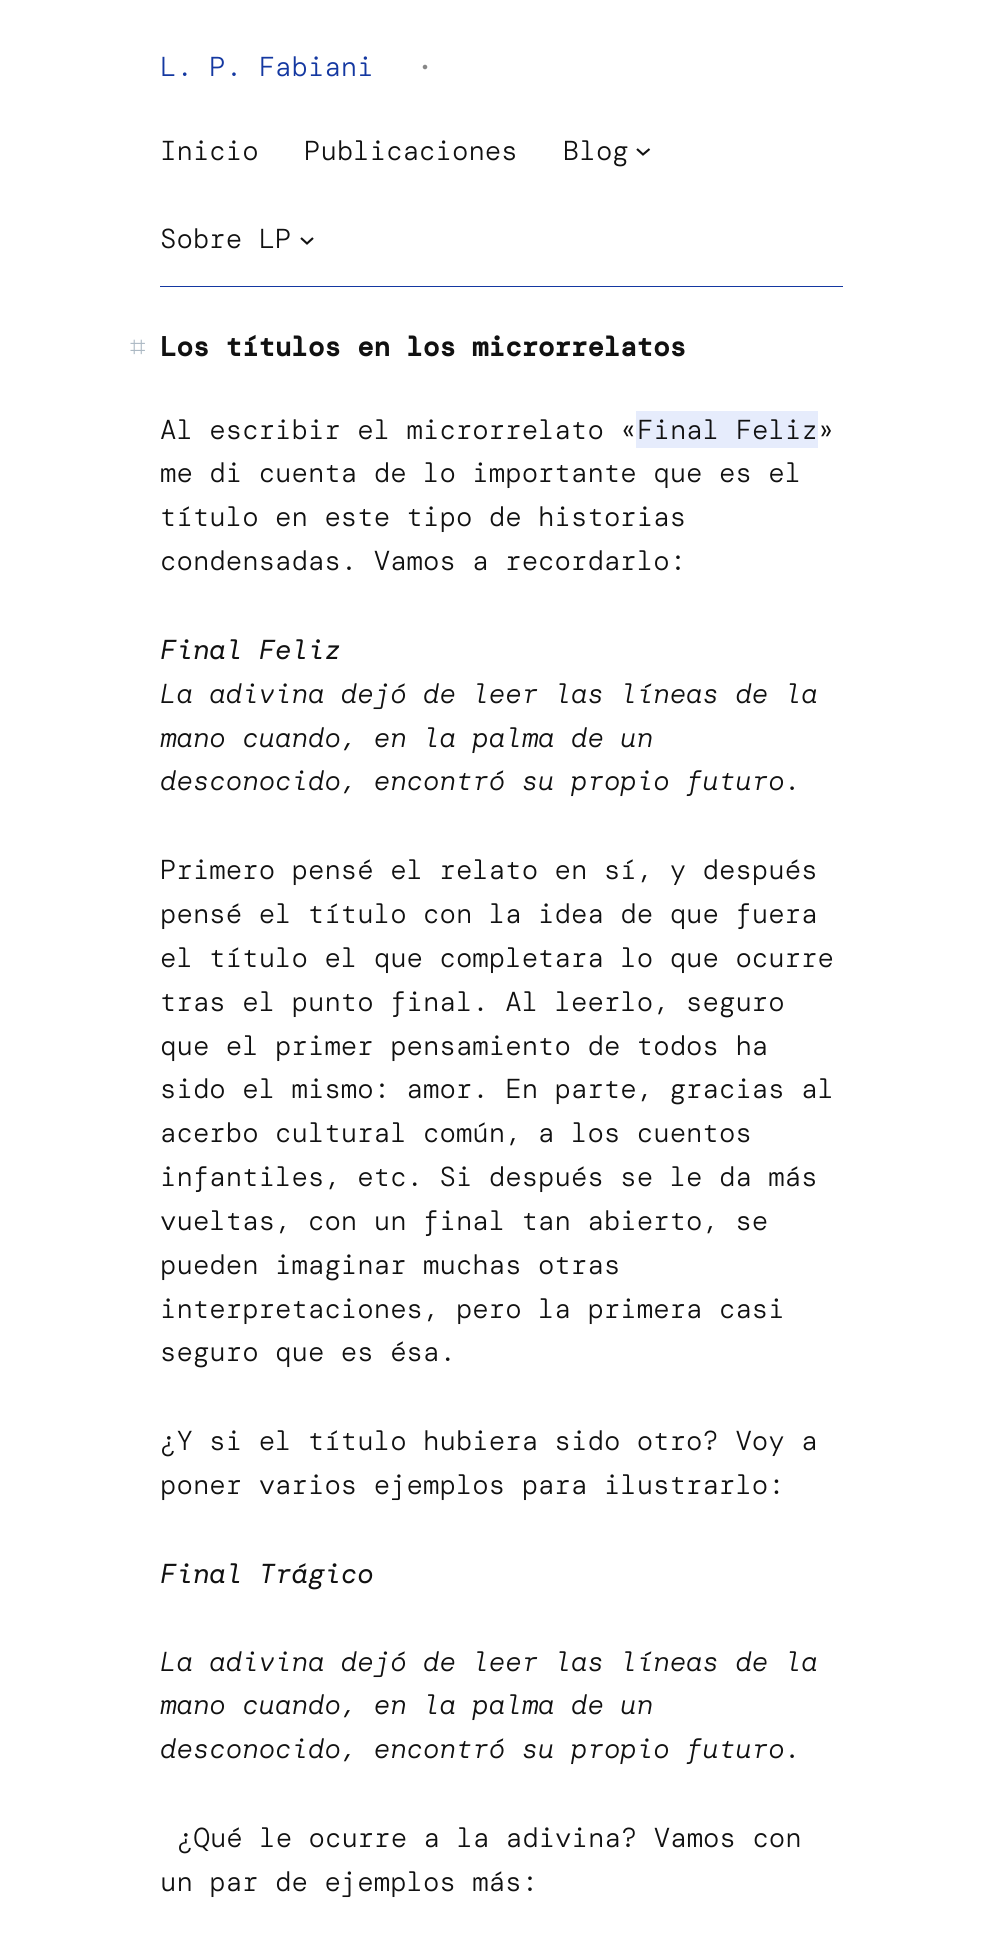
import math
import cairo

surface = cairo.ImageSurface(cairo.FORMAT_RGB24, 1002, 1939)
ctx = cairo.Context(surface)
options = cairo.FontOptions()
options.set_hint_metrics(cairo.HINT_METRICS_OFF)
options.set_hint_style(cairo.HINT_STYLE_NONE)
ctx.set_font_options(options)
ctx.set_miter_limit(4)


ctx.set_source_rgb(1, 1, 1)
ctx.paint()
ctx.select_font_face("DM Mono Light")
ctx.set_font_size(27.4)
ctx.set_source_rgb(0.082, 0.22, 0.631)
ctx.move_to(160, 76)
ctx.show_text("L. P. Fabiani")
ctx.set_font_size(20)
ctx.set_source_rgb(0.529, 0.529, 0.529)
ctx.move_to(419, 74)
ctx.show_text("•")
ctx.set_font_size(27.4)
ctx.set_source_rgb(0.067, 0.067, 0.067)
ctx.move_to(160, 160)
ctx.show_text("Inicio")
ctx.move_to(304, 160)
ctx.show_text("Publicaciones")
ctx.move_to(563, 160)
ctx.show_text("Blog")
ctx.new_path()
ctx.move_to(637, 149)
ctx.line_to(643, 154.5)
ctx.line_to(649.5, 149)
ctx.set_line_width(2.1)
ctx.stroke()
ctx.move_to(160, 248)
ctx.show_text("Sobre LP")
ctx.new_path()
ctx.move_to(301, 238)
ctx.line_to(307, 243.5)
ctx.line_to(313, 238)
ctx.stroke()
ctx.set_source_rgb(0.082, 0.22, 0.631)
ctx.rectangle(160, 286, 683, 1)
ctx.fill()
ctx.select_font_face("FreeSerif")
ctx.set_source_rgb(0.671, 0.722, 0.765)
ctx.move_to(130, 356)
ctx.show_text("⌗")
ctx.select_font_face("DM Mono", cairo.FONT_SLANT_NORMAL, cairo.FONT_WEIGHT_BOLD)
ctx.set_source_rgb(0.067, 0.067, 0.067)
ctx.move_to(160, 356)
ctx.show_text("Los títulos en los microrrelatos")
ctx.select_font_face("DM Mono Light")
ctx.move_to(160, 439)
ctx.show_text("Al escribir el microrrelato «")
ctx.set_source_rgb(0.902, 0.925, 0.988)
ctx.rectangle(636, 411, 182, 37)
ctx.fill()
ctx.set_source_rgb(0.067, 0.067, 0.067)
ctx.move_to(637, 439)
ctx.show_text("Final Feliz»")
ctx.move_to(160, 482)
ctx.show_text("me di cuenta de lo importante que es el")
ctx.move_to(160, 526)
ctx.show_text("título en este tipo de historias")
ctx.move_to(160, 570)
ctx.show_text("condensadas. Vamos a recordarlo:")
ctx.select_font_face("DM Mono", cairo.FONT_SLANT_ITALIC)
ctx.move_to(160, 659)
ctx.show_text("Final Feliz")
ctx.select_font_face("DM Mono Light", cairo.FONT_SLANT_ITALIC)
ctx.move_to(160, 703)
ctx.show_text("La adivina dejó de leer las líneas de la")
ctx.move_to(160, 747)
ctx.show_text("mano cuando, en la palma de un")
ctx.move_to(160, 790)
ctx.show_text("desconocido, encontró su propio futuro.")
ctx.select_font_face("DM Mono Light")
ctx.move_to(160, 879)
ctx.show_text("Primero pensé el relato en sí, y después")
ctx.move_to(160, 923)
ctx.show_text("pensé el título con la idea de que fuera")
ctx.move_to(160, 967)
ctx.show_text("el título el que completara lo que ocurre")
ctx.move_to(160, 1011)
ctx.show_text("tras el punto final. Al leerlo, seguro")
ctx.move_to(160, 1055)
ctx.show_text("que el primer pensamiento de todos ha")
ctx.move_to(160, 1098)
ctx.show_text("sido el mismo: amor. En parte, gracias al")
ctx.move_to(160, 1142)
ctx.show_text("acerbo cultural común, a los cuentos")
ctx.move_to(160, 1186)
ctx.show_text("infantiles, etc. Si después se le da más")
ctx.move_to(160, 1230)
ctx.show_text("vueltas, con un final tan abierto, se")
ctx.move_to(160, 1274)
ctx.show_text("pueden imaginar muchas otras")
ctx.move_to(160, 1318)
ctx.show_text("interpretaciones, pero la primera casi")
ctx.move_to(160, 1361)
ctx.show_text("seguro que es ésa.")
ctx.move_to(160, 1450)
ctx.show_text("¿Y si el título hubiera sido otro? Voy a")
ctx.move_to(160, 1494)
ctx.show_text("poner varios ejemplos para ilustrarlo:")
ctx.select_font_face("DM Mono", cairo.FONT_SLANT_ITALIC)
ctx.move_to(160, 1583)
ctx.show_text("Final Trágico")
ctx.select_font_face("DM Mono Light", cairo.FONT_SLANT_ITALIC)
ctx.move_to(160, 1671)
ctx.show_text("La adivina dejó de leer las líneas de la")
ctx.move_to(160, 1714)
ctx.show_text("mano cuando, en la palma de un")
ctx.move_to(160, 1758)
ctx.show_text("desconocido, encontró su propio futuro.")
ctx.select_font_face("DM Mono Light")
ctx.move_to(177, 1847)
ctx.show_text("¿Qué le ocurre a la adivina? Vamos con")
ctx.move_to(160, 1891)
ctx.show_text("un par de ejemplos más:")
surface.write_to_png("page.png")
